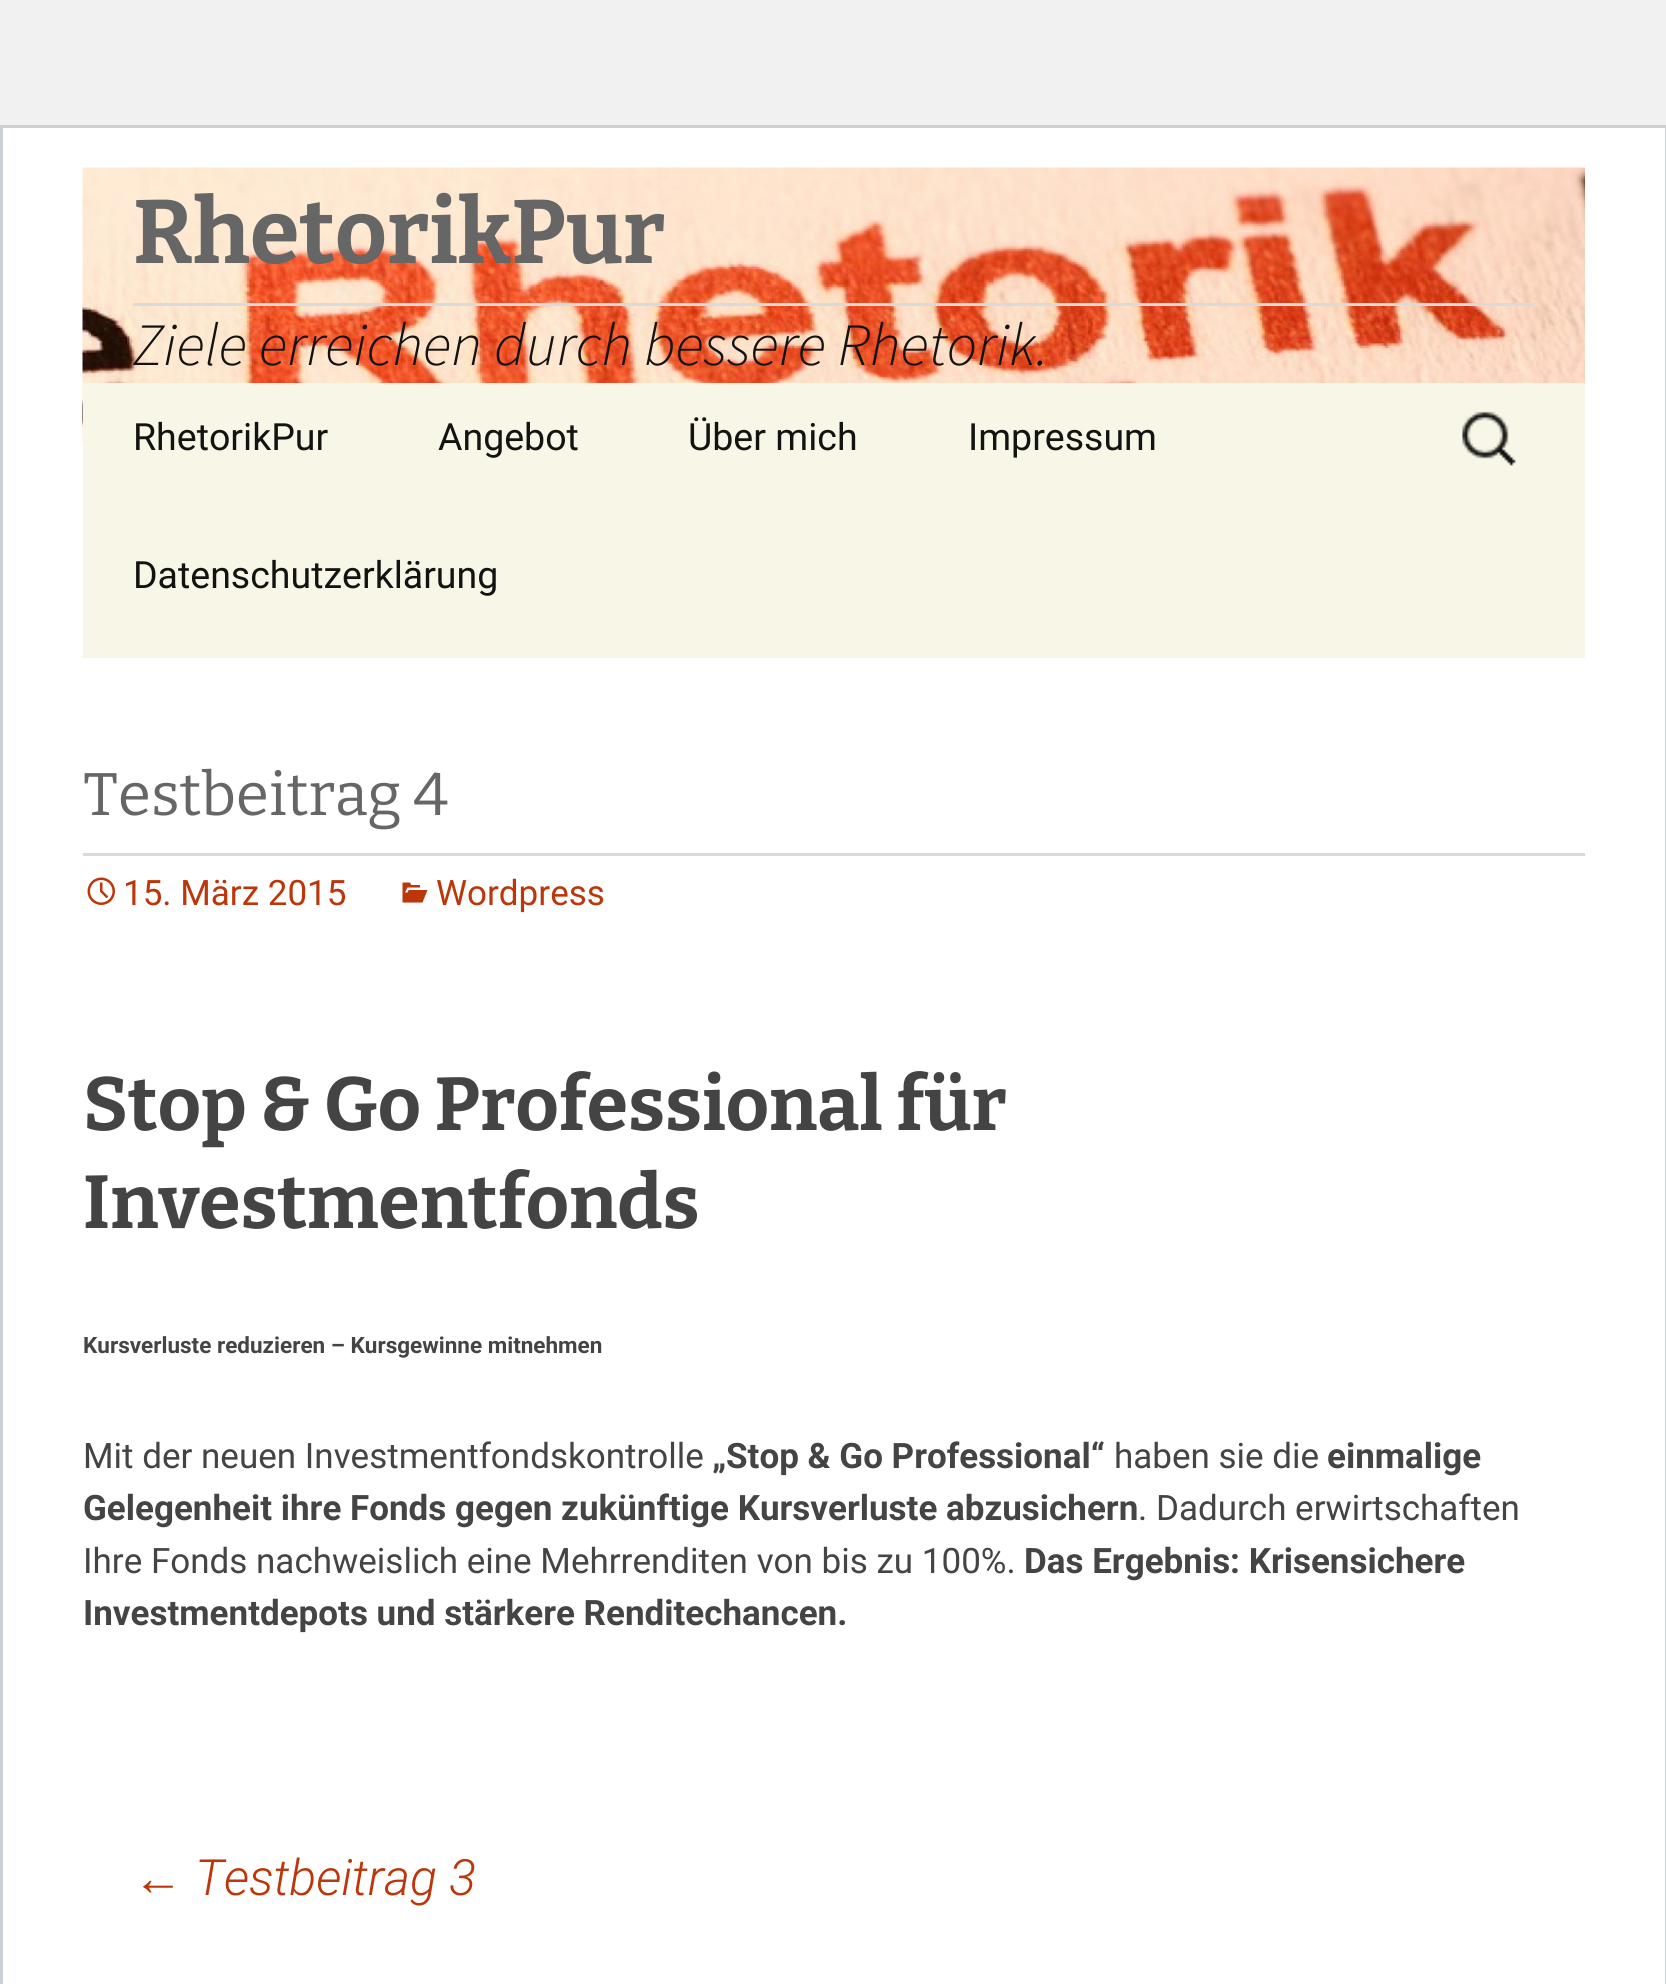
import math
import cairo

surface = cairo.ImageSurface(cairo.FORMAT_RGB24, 1666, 1984)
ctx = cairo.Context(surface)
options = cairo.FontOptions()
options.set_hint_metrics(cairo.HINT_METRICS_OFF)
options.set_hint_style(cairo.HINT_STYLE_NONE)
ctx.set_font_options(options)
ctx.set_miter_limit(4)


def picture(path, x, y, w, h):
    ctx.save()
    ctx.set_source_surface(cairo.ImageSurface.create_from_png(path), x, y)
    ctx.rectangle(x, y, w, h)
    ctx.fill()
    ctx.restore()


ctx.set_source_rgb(0.945, 0.945, 0.945)
ctx.paint()
ctx.set_source_rgb(1, 1, 1)
ctx.rectangle(1.5, 126.5, 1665, 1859)
ctx.fill_preserve()
ctx.set_source_rgb(0.8, 0.816, 0.831)
ctx.set_line_width(3)
ctx.stroke()
picture("img1.png", 82, 167, 1503, 276)
ctx.set_source_rgb(0.855, 0.855, 0.855)
ctx.rectangle(133, 303, 1402, 3)
ctx.fill()
ctx.select_font_face("Bitter", cairo.FONT_SLANT_NORMAL, cairo.FONT_WEIGHT_BOLD)
ctx.set_font_size(90)
ctx.set_source_rgb(0.4, 0.4, 0.4)
ctx.move_to(133, 263)
ctx.show_text("RhetorikPur")
ctx.select_font_face("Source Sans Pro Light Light", cairo.FONT_SLANT_ITALIC)
ctx.set_font_size(60)
ctx.set_source_rgb(0.078, 0.078, 0.071)
ctx.move_to(133, 365)
ctx.show_text("Ziele erreichen durch bessere Rhetorik.")
ctx.set_source_rgb(0.969, 0.961, 0.906)
ctx.rectangle(83, 383, 1502, 275)
ctx.fill()
ctx.select_font_face("Roboto")
ctx.set_font_size(37.5)
ctx.set_source_rgb(0.078, 0.078, 0.071)
ctx.move_to(133, 450)
ctx.show_text("RhetorikPur")
ctx.move_to(438, 450)
ctx.show_text("Angebot")
ctx.move_to(688, 450)
ctx.show_text("Über mich")
ctx.move_to(968, 450)
ctx.show_text("Impressum")
ctx.move_to(133, 588)
ctx.show_text("Datenschutzerklärung")
picture("img2.png", 1462, 411, 54, 55)
ctx.set_source_rgb(0.855, 0.855, 0.855)
ctx.rectangle(83, 853, 1502, 3)
ctx.fill()
ctx.select_font_face("Bitter")
ctx.set_font_size(60)
ctx.set_source_rgb(0.4, 0.4, 0.4)
ctx.move_to(83, 815)
ctx.show_text("Testbeitrag 4")
picture("img3.png", 87, 877, 28, 28)
ctx.select_font_face("Roboto")
ctx.set_font_size(35)
ctx.set_source_rgb(0.737, 0.212, 0.039)
ctx.move_to(123, 905)
ctx.show_text("15. März 2015")
picture("img4.png", 402, 882, 26, 21)
ctx.move_to(436, 905)
ctx.show_text("Wordpress")
ctx.select_font_face("Bitter", cairo.FONT_SLANT_NORMAL, cairo.FONT_WEIGHT_BOLD)
ctx.set_font_size(75)
ctx.set_source_rgb(0.267, 0.267, 0.267)
ctx.move_to(83, 1130)
ctx.show_text("Stop & Go Professional für")
ctx.move_to(83, 1228)
ctx.show_text("Investmentfonds")
ctx.select_font_face("Roboto", cairo.FONT_SLANT_NORMAL, cairo.FONT_WEIGHT_BOLD)
ctx.set_font_size(22.5)
ctx.move_to(83, 1353)
ctx.show_text("Kursverluste reduzieren – Kursgewinne mitnehmen")
ctx.select_font_face("Roboto")
ctx.set_font_size(35)
ctx.move_to(83, 1468)
ctx.show_text("Mit der neuen Investmentfondskontrolle")
ctx.select_font_face("Roboto", cairo.FONT_SLANT_NORMAL, cairo.FONT_WEIGHT_BOLD)
ctx.move_to(712, 1468)
ctx.show_text("„Stop & Go Professional“")
ctx.select_font_face("Roboto")
ctx.move_to(1114, 1468)
ctx.show_text("haben sie die")
ctx.select_font_face("Roboto", cairo.FONT_SLANT_NORMAL, cairo.FONT_WEIGHT_BOLD)
ctx.move_to(1327, 1468)
ctx.show_text("einmalige")
ctx.move_to(83, 1520)
ctx.show_text("Gelegenheit ihre Fonds gegen zukünftige Kursverluste abzusichern")
ctx.select_font_face("Roboto")
ctx.move_to(1138, 1520)
ctx.show_text(". Dadurch erwirtschaften")
ctx.move_to(83, 1573)
ctx.show_text("Ihre Fonds nachweislich eine Mehrrenditen von bis zu 100%.")
ctx.select_font_face("Roboto", cairo.FONT_SLANT_NORMAL, cairo.FONT_WEIGHT_BOLD)
ctx.move_to(1024, 1573)
ctx.show_text("Das Ergebnis: Krisensichere")
ctx.move_to(83, 1625)
ctx.show_text("Investmentdepots und stärkere Renditechancen.")
ctx.select_font_face("Liberation Sans", cairo.FONT_SLANT_ITALIC)
ctx.set_font_size(50)
ctx.set_source_rgb(0.737, 0.212, 0.039)
ctx.move_to(133, 1895)
ctx.show_text("←")
ctx.select_font_face("Roboto Light", cairo.FONT_SLANT_ITALIC)
ctx.move_to(195, 1895)
ctx.show_text("Testbeitrag 3")
surface.write_to_png("page.png")
